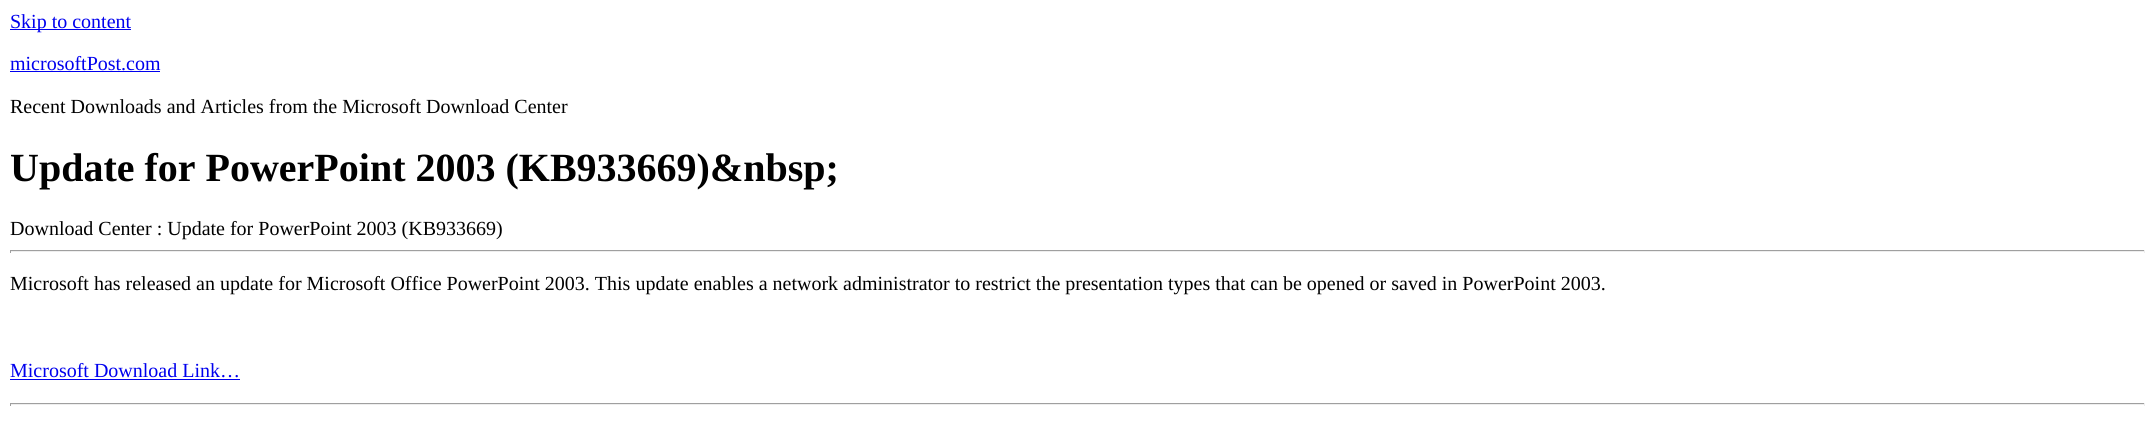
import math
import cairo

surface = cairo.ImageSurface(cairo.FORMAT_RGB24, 2155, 422)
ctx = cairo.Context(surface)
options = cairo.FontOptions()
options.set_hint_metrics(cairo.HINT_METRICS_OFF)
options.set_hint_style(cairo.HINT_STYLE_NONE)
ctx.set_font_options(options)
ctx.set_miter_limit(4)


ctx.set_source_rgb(1, 1, 1)
ctx.paint()
ctx.set_source_rgb(0, 0, 0.933)
ctx.rectangle(10, 29, 121, 1)
ctx.fill()
ctx.select_font_face("Liberation Serif")
ctx.set_font_size(20)
ctx.move_to(10, 28)
ctx.show_text("Skip to content")
ctx.move_to(10, 70)
ctx.show_text("microsoftPost.com")
ctx.rectangle(10, 71, 150, 1)
ctx.fill()
ctx.set_source_rgb(0, 0, 0)
ctx.move_to(10, 113)
ctx.show_text("Recent Downloads and Articles from the Microsoft Download Center")
ctx.select_font_face("Liberation Serif", cairo.FONT_SLANT_NORMAL, cairo.FONT_WEIGHT_BOLD)
ctx.set_font_size(40)
ctx.move_to(10, 181)
ctx.show_text("Update for PowerPoint 2003 (KB933669)&nbsp;")
ctx.select_font_face("Liberation Serif")
ctx.set_font_size(20)
ctx.move_to(10, 235)
ctx.show_text("Download Center : Update for PowerPoint 2003 (KB933669)")
ctx.set_source_rgb(0.624, 0.624, 0.624)
ctx.rectangle(10, 250, 2135, 1)
ctx.fill()
ctx.set_source_rgb(0.933, 0.933, 0.933)
ctx.rectangle(2144, 250, 1, 3)
ctx.fill()
ctx.rectangle(10, 251, 2135, 1)
ctx.fill()
ctx.set_source_rgb(0.624, 0.624, 0.624)
ctx.rectangle(10, 250, 1, 3)
ctx.fill()
ctx.set_source_rgb(0, 0, 0)
ctx.move_to(10, 290)
ctx.show_text("Microsoft has released an update for Microsoft Office PowerPoint 2003. This update enables a network administrator to restrict the presentation types that can be opened or saved in PowerPoint 2003.")
ctx.set_source_rgb(0, 0, 0.933)
ctx.move_to(10, 377)
ctx.show_text("Microsoft Download Link…")
ctx.rectangle(10, 379, 230, 1)
ctx.fill()
ctx.set_source_rgb(0.624, 0.624, 0.624)
ctx.rectangle(10, 403, 2135, 1)
ctx.fill()
ctx.set_source_rgb(0.933, 0.933, 0.933)
ctx.rectangle(2144, 403, 1, 3)
ctx.fill()
ctx.rectangle(10, 404, 2135, 1)
ctx.fill()
ctx.set_source_rgb(0.624, 0.624, 0.624)
ctx.rectangle(10, 403, 1, 3)
ctx.fill()
surface.write_to_png("page.png")
